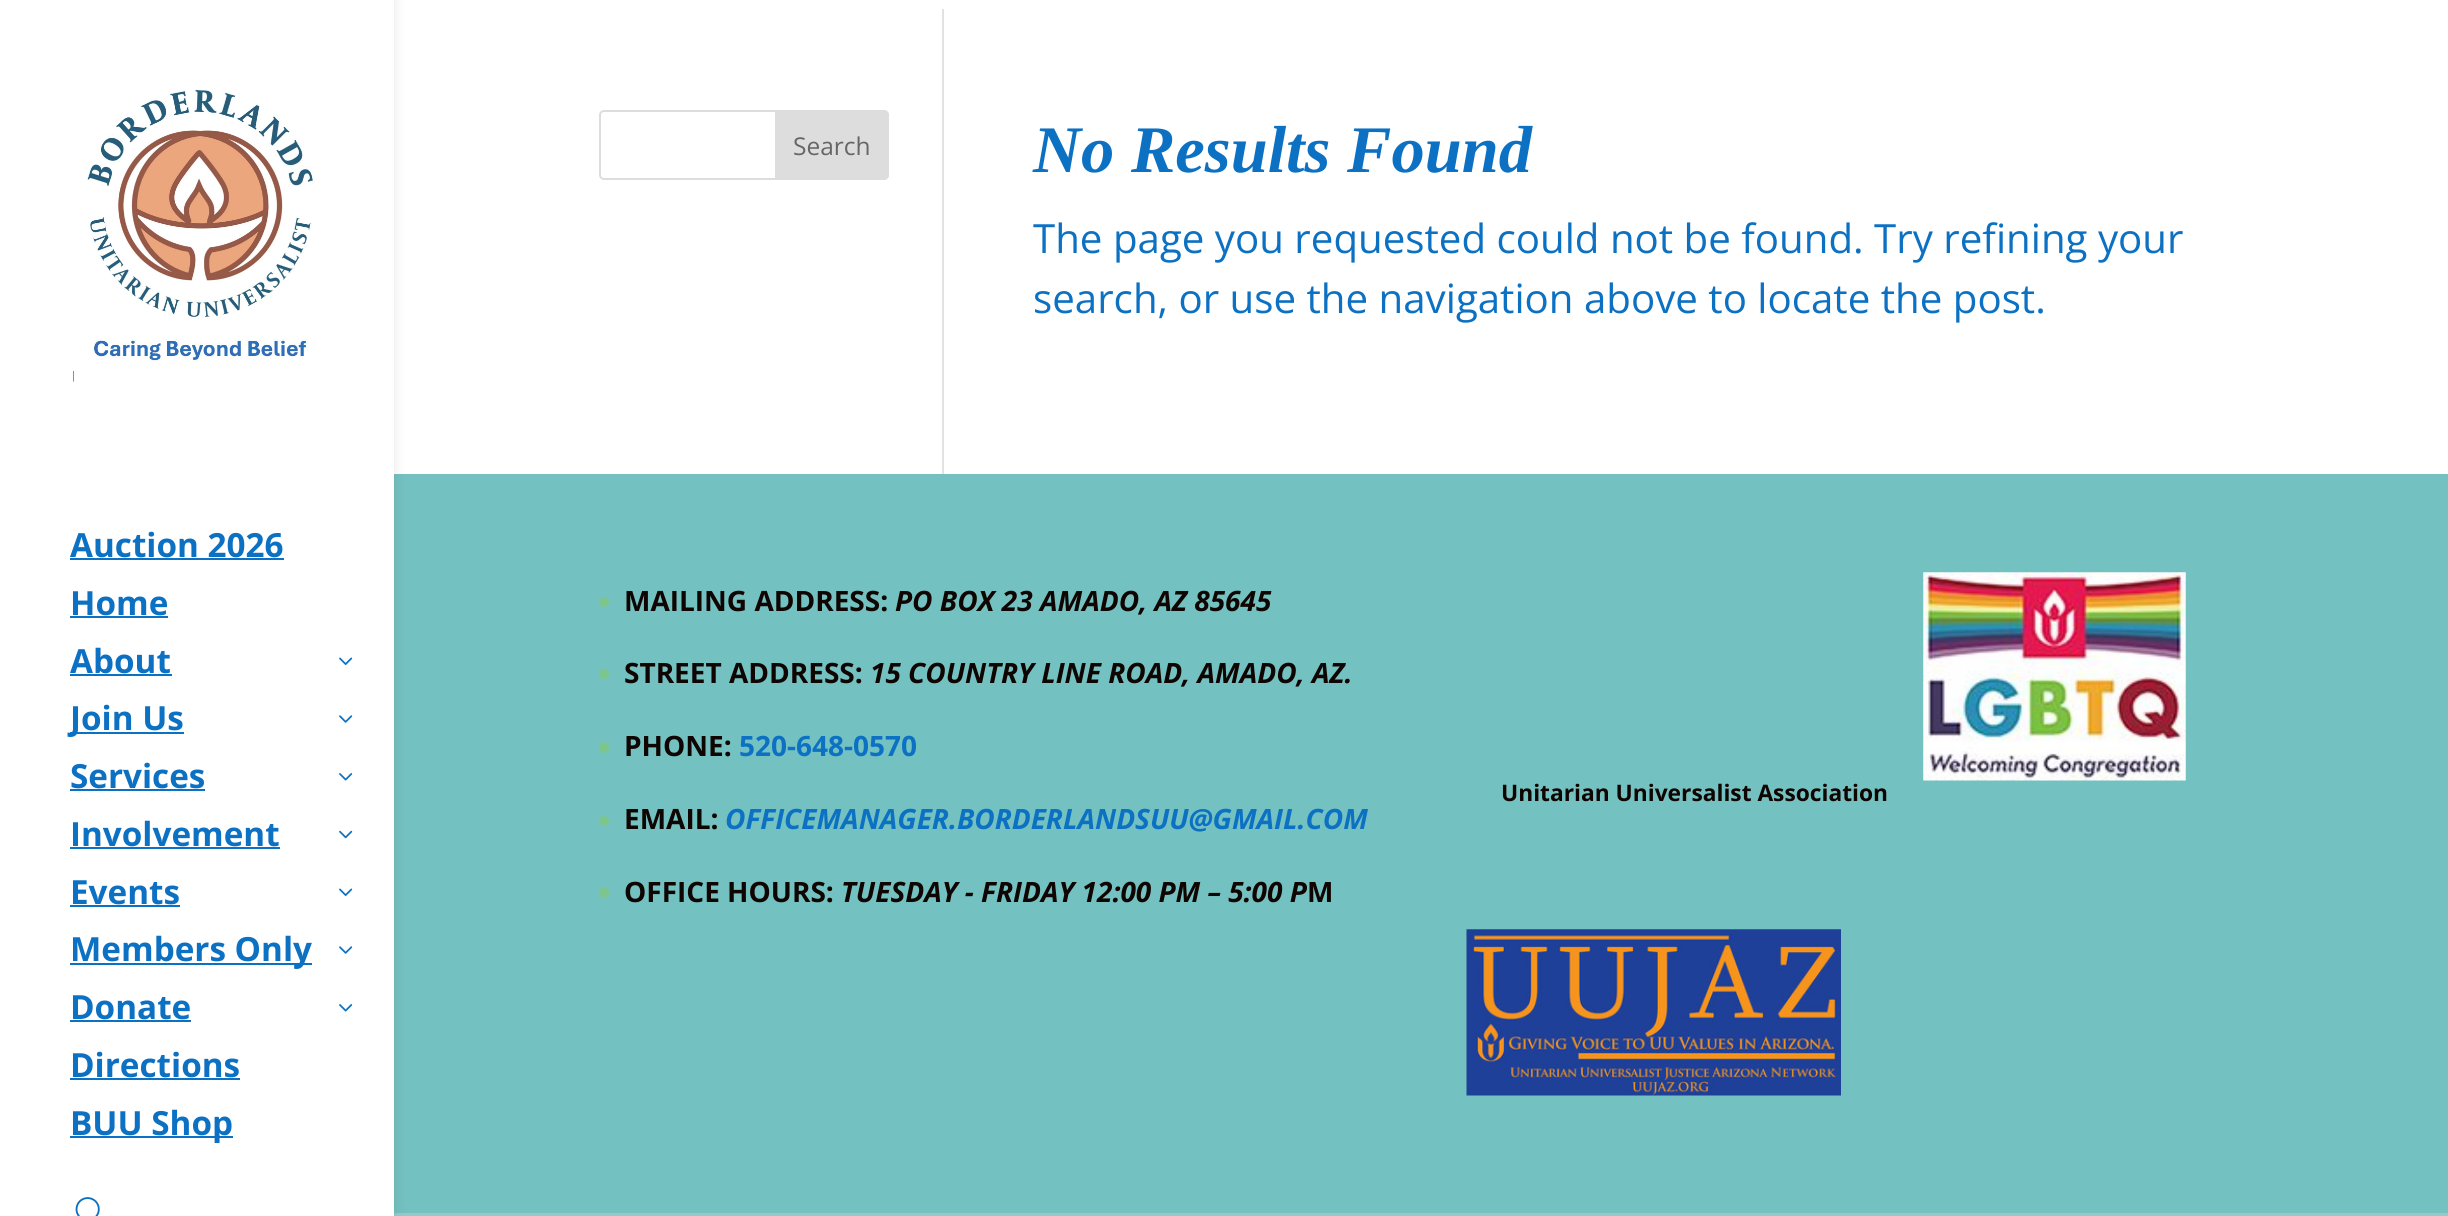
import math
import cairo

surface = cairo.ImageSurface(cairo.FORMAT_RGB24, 2448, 1216)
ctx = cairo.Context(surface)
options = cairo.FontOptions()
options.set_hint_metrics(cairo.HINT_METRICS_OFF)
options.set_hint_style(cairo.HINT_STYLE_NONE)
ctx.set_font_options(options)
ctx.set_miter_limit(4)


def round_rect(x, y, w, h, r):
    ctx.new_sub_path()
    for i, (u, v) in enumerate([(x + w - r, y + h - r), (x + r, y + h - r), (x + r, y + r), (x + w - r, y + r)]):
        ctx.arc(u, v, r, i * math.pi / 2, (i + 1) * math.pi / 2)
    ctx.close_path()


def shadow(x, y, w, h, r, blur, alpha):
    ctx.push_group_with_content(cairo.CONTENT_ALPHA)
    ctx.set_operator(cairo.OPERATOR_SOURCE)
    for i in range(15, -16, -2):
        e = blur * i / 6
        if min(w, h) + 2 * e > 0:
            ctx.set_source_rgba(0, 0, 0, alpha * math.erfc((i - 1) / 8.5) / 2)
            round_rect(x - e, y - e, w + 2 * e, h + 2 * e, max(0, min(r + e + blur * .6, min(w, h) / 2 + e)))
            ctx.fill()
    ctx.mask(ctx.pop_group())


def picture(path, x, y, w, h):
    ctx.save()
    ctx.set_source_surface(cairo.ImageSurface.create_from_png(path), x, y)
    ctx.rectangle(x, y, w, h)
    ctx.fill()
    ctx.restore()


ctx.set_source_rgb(1, 1, 1)
ctx.paint()
ctx.set_source_rgb(0.455, 0.757, 0.757)
ctx.rectangle(394, 474, 2054, 739)
ctx.fill()
ctx.set_source_rgb(0.588, 0.792, 0.792)
ctx.rectangle(394, 1213, 2054, 3)
ctx.fill()
ctx.set_source_rgb(0, 0, 0)
shadow(0, 0, 394, 1216, 0, 6, 0.1)
ctx.set_source_rgb(1, 1, 1)
ctx.rectangle(0, 0, 394, 1216)
ctx.fill()
picture("img1.png", 73, 89, 242, 293)
ctx.select_font_face("Open Sans", cairo.FONT_SLANT_NORMAL, cairo.FONT_WEIGHT_BOLD)
ctx.set_font_size(33.25)
ctx.set_source_rgb(0.047, 0.443, 0.765)
ctx.move_to(70, 557)
ctx.show_text("Auction 2026")
ctx.rectangle(70, 558, 214, 2)
ctx.fill()
ctx.move_to(70, 615)
ctx.show_text("Home")
ctx.rectangle(70, 616, 98, 2)
ctx.fill()
ctx.move_to(70, 673)
ctx.show_text("About")
ctx.rectangle(70, 674, 102, 2)
ctx.fill()
picture("img2.png", 339, 657, 14, 8)
ctx.rectangle(70, 732, 114, 2)
ctx.fill()
ctx.move_to(70, 730)
ctx.show_text("Join Us")
picture("img3.png", 339, 715, 14, 8)
ctx.move_to(70, 788)
ctx.show_text("Services")
ctx.rectangle(70, 789, 135, 2)
ctx.fill()
picture("img4.png", 339, 773, 14, 8)
ctx.move_to(70, 846)
ctx.show_text("Involvement")
ctx.rectangle(70, 847, 210, 2)
ctx.fill()
picture("img5.png", 339, 830, 14, 9)
ctx.move_to(70, 904)
ctx.show_text("Events")
ctx.rectangle(70, 905, 110, 2)
ctx.fill()
picture("img2.png", 339, 888, 14, 8)
ctx.rectangle(70, 963, 242, 2)
ctx.fill()
ctx.move_to(70, 961)
ctx.show_text("Members Only")
picture("img3.png", 339, 946, 14, 8)
ctx.move_to(70, 1019)
ctx.show_text("Donate")
ctx.rectangle(70, 1020, 121, 2)
ctx.fill()
picture("img4.png", 339, 1004, 14, 8)
ctx.move_to(70, 1077)
ctx.show_text("Directions")
ctx.rectangle(70, 1078, 170, 2)
ctx.fill()
ctx.rectangle(70, 1136, 163, 2)
ctx.fill()
ctx.move_to(70, 1135)
ctx.show_text("BUU Shop")
picture("img6.png", 75, 1197, 25, 19)
ctx.set_source_rgb(0.886, 0.886, 0.886)
ctx.rectangle(942, 9, 2, 465)
ctx.fill()
round_rect(600, 111, 288, 68, 4)
ctx.set_source_rgb(0.867, 0.867, 0.867)
ctx.stroke()
ctx.new_path()
ctx.move_to(776, 111)
ctx.line_to(884, 111)
ctx.curve_to(886, 111, 888, 113, 888, 115)
ctx.line_to(888, 175)
ctx.curve_to(888, 177, 886, 179, 884, 179)
ctx.line_to(776, 179)
ctx.close_path()
ctx.fill_preserve()
ctx.stroke()
ctx.select_font_face("Open Sans")
ctx.set_font_size(24.5)
ctx.set_source_rgb(0.4, 0.4, 0.4)
ctx.move_to(793, 155)
ctx.show_text("Search")
ctx.select_font_face("Liberation Serif", cairo.FONT_SLANT_ITALIC, cairo.FONT_WEIGHT_BOLD)
ctx.set_font_size(66.5)
ctx.set_source_rgb(0.047, 0.443, 0.765)
ctx.move_to(1033, 172)
ctx.show_text("No Results Found")
ctx.select_font_face("Open Sans")
ctx.set_font_size(40.25)
ctx.move_to(1033, 253)
ctx.show_text("The page you requested could not be found. Try refining your")
ctx.move_to(1033, 313)
ctx.show_text("search, or use the navigation above to locate the post.")
ctx.set_source_rgb(0.486, 0.776, 0.553)
ctx.new_path()
ctx.arc(604, 602, 5, 0, 2 * math.pi)
ctx.fill()
ctx.select_font_face("Open Sans", cairo.FONT_SLANT_NORMAL, cairo.FONT_WEIGHT_BOLD)
ctx.set_font_size(28)
ctx.set_source_rgb(0.059, 0.02, 0.008)
ctx.move_to(624, 611)
ctx.show_text("MAILING ADDRESS:")
ctx.select_font_face("Open Sans", cairo.FONT_SLANT_ITALIC, cairo.FONT_WEIGHT_BOLD)
ctx.move_to(895, 611)
ctx.show_text("PO BOX 23 AMADO, AZ 85645")
ctx.set_source_rgb(0.486, 0.776, 0.553)
ctx.new_path()
ctx.arc(604, 674, 5, 0, 2 * math.pi)
ctx.fill()
ctx.select_font_face("Open Sans", cairo.FONT_SLANT_NORMAL, cairo.FONT_WEIGHT_BOLD)
ctx.set_source_rgb(0.059, 0.02, 0.008)
ctx.move_to(624, 683)
ctx.show_text("STREET ADDRESS:")
ctx.select_font_face("Open Sans", cairo.FONT_SLANT_ITALIC, cairo.FONT_WEIGHT_BOLD)
ctx.move_to(870, 683)
ctx.show_text("15 COUNTRY LINE ROAD, AMADO, AZ.")
ctx.set_source_rgb(0.486, 0.776, 0.553)
round_rect(599, 742, 10, 11, 5)
ctx.fill()
ctx.select_font_face("Open Sans", cairo.FONT_SLANT_NORMAL, cairo.FONT_WEIGHT_BOLD)
ctx.set_source_rgb(0.059, 0.02, 0.008)
ctx.move_to(624, 756)
ctx.show_text("PHONE:")
ctx.set_source_rgb(0.047, 0.443, 0.765)
ctx.move_to(739, 756)
ctx.show_text("520-648-0570")
ctx.set_source_rgb(0.486, 0.776, 0.553)
ctx.new_path()
ctx.arc(604, 821, 5, 0, 2 * math.pi)
ctx.fill()
ctx.set_source_rgb(0.059, 0.02, 0.008)
ctx.move_to(624, 829)
ctx.show_text("EMAIL:")
ctx.select_font_face("Open Sans", cairo.FONT_SLANT_ITALIC, cairo.FONT_WEIGHT_BOLD)
ctx.set_source_rgb(0.047, 0.443, 0.765)
ctx.move_to(725, 829)
ctx.show_text("OFFICEMANAGER.BORDERLANDSUU@GMAIL.COM")
ctx.set_source_rgb(0.486, 0.776, 0.553)
round_rect(599, 887, 10, 11, 5)
ctx.fill()
ctx.select_font_face("Open Sans", cairo.FONT_SLANT_NORMAL, cairo.FONT_WEIGHT_BOLD)
ctx.set_source_rgb(0.059, 0.02, 0.008)
ctx.move_to(624, 902)
ctx.show_text("OFFICE HOURS:")
ctx.select_font_face("Open Sans", cairo.FONT_SLANT_ITALIC, cairo.FONT_WEIGHT_BOLD)
ctx.move_to(841, 902)
ctx.show_text("TUESDAY - FRIDAY 12:00 PM – 5:00 P")
ctx.select_font_face("Open Sans", cairo.FONT_SLANT_NORMAL, cairo.FONT_WEIGHT_BOLD)
ctx.move_to(1307, 902)
ctx.show_text("M")
picture("img7.png", 1923, 572, 263, 209)
ctx.set_font_size(22.75)
ctx.move_to(1501, 801)
ctx.show_text("Unitarian Universalist Association")
picture("img8.png", 1466, 929, 375, 167)
surface.write_to_png("page.png")
